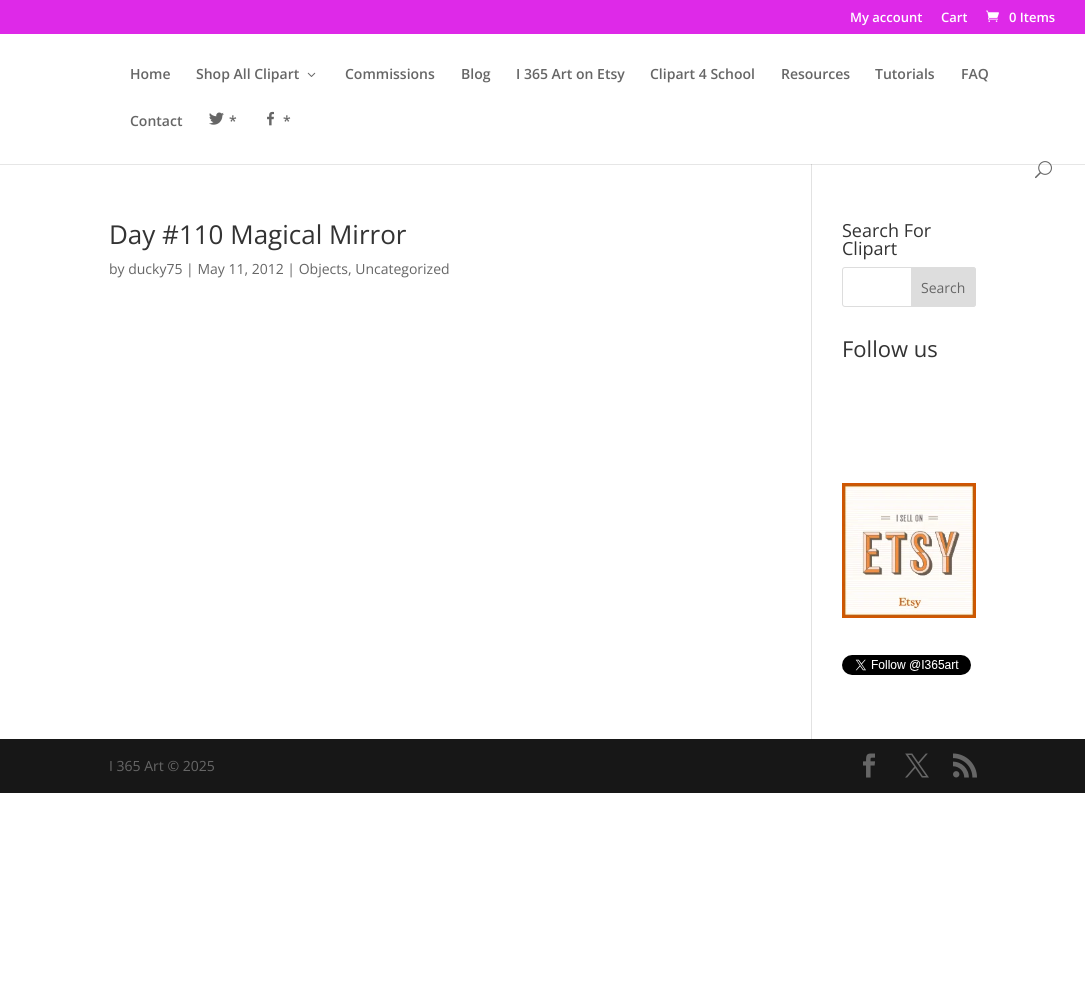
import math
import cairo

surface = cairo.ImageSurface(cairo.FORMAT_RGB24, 1085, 985)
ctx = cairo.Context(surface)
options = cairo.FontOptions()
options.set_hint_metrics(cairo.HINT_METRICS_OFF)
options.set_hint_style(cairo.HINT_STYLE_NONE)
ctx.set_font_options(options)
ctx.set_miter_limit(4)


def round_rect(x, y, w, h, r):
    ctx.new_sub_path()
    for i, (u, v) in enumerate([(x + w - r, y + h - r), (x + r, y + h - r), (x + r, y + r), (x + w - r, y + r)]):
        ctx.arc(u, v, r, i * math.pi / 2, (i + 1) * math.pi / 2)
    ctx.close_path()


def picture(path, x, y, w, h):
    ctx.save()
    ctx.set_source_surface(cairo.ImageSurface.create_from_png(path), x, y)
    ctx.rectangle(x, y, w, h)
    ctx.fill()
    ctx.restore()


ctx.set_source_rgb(1, 1, 1)
ctx.paint()
ctx.set_source_rgb(0.902, 0.902, 0.902)
ctx.rectangle(0, 164, 1085, 1)
ctx.fill()
ctx.set_source_rgb(0.871, 0.161, 0.91)
ctx.rectangle(0, 0, 1085, 34)
ctx.fill()
ctx.select_font_face("Open Sans SemiBold")
ctx.set_font_size(13)
ctx.set_source_rgb(1, 1, 1)
ctx.move_to(850, 22)
ctx.show_text("My account")
ctx.move_to(941, 22)
ctx.show_text("Cart")
picture("img1.png", 986, 10, 13, 12)
ctx.move_to(1009, 22)
ctx.show_text("0 Items")
ctx.set_source_rgb(0.886, 0.886, 0.886)
ctx.rectangle(811, 163, 1, 576)
ctx.fill()
ctx.set_source_rgb(1, 1, 1)
ctx.rectangle(811, 163, 1, 1)
ctx.fill()
ctx.set_font_size(14)
ctx.set_source_rgb(0.4, 0.4, 0.4)
ctx.move_to(130, 79)
ctx.show_text("Home")
ctx.move_to(196, 79)
ctx.show_text("Shop All Clipart")
picture("img2.png", 307, 72, 9, 5)
ctx.move_to(345, 79)
ctx.show_text("Commissions")
ctx.move_to(461, 79)
ctx.show_text("Blog")
ctx.move_to(516, 79)
ctx.show_text("I 365 Art on Etsy")
ctx.move_to(650, 79)
ctx.show_text("Clipart 4 School")
ctx.move_to(781, 79)
ctx.show_text("Resources")
ctx.move_to(875, 79)
ctx.show_text("Tutorials")
ctx.move_to(961, 79)
ctx.show_text("FAQ")
ctx.move_to(130, 126)
ctx.show_text("Contact")
picture("img3.png", 209, 112, 15, 13)
ctx.move_to(229, 126)
ctx.show_text("*")
picture("img4.png", 267, 111, 7, 15)
ctx.move_to(283, 126)
ctx.show_text("*")
picture("img5.png", 1035, 161, 17, 18)
ctx.set_source_rgb(0.796, 0.796, 0.796)
ctx.rectangle(811, 164, 1, 1)
ctx.fill()
ctx.select_font_face("Open Sans")
ctx.set_font_size(26)
ctx.set_source_rgb(0.2, 0.2, 0.2)
ctx.move_to(109, 244)
ctx.show_text("Day #110 Magical Mirror")
ctx.set_font_size(14)
ctx.set_source_rgb(0.4, 0.4, 0.4)
ctx.move_to(109, 274)
ctx.show_text("by ducky75 | May 11, 2012 | Objects, Uncategorized")
ctx.set_font_size(18)
ctx.set_source_rgb(0.2, 0.2, 0.2)
ctx.move_to(842, 237)
ctx.show_text("Search For")
ctx.move_to(842, 255)
ctx.show_text("Clipart")
round_rect(842.5, 267.5, 133, 39, 2.5)
ctx.set_source_rgb(0.867, 0.867, 0.867)
ctx.set_line_width(1)
ctx.stroke()
ctx.new_path()
ctx.move_to(911.5, 267.5)
ctx.line_to(973, 267.5)
ctx.curve_to(974.5, 267.5, 975.5, 268.5, 975.5, 270)
ctx.line_to(975.5, 304)
ctx.curve_to(975.5, 305.5, 974.5, 306.5, 973, 306.5)
ctx.line_to(911.5, 306.5)
ctx.close_path()
ctx.fill_preserve()
ctx.stroke()
ctx.set_font_size(14)
ctx.set_source_rgb(0.4, 0.4, 0.4)
ctx.move_to(921, 293)
ctx.show_text("Search")
ctx.set_font_size(22)
ctx.set_source_rgb(0.2, 0.2, 0.2)
ctx.move_to(842, 357)
ctx.show_text("Follow us")
picture("img6.png", 842, 483, 134, 135)
picture("img7.png", 842, 655, 129, 20)
ctx.set_source_rgb(0.09, 0.09, 0.09)
ctx.rectangle(0, 739, 1085, 54)
ctx.fill()
ctx.set_font_size(14)
ctx.set_source_rgb(0.4, 0.4, 0.4)
ctx.move_to(109, 771)
ctx.show_text("I 365 Art © 2025")
picture("img8.png", 863, 753, 12, 25)
picture("img9.png", 905, 753, 24, 25)
picture("img10.png", 953, 753, 24, 25)
surface.write_to_png("page.png")
